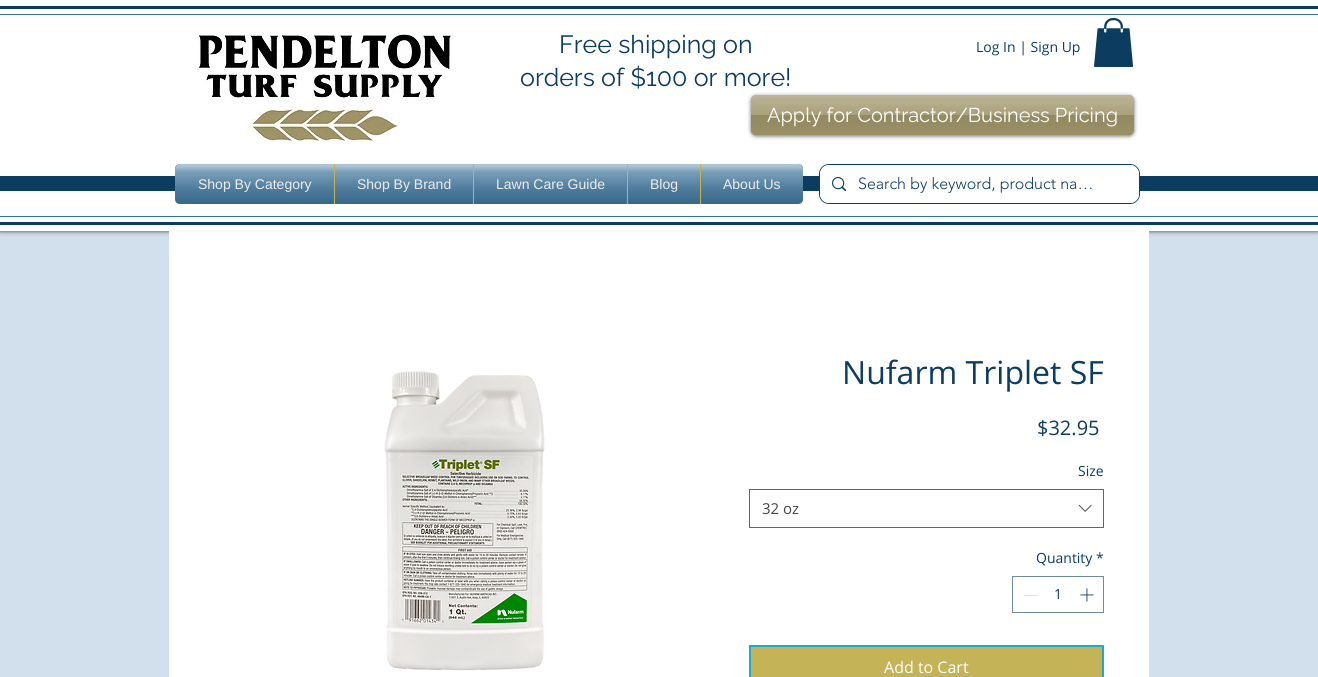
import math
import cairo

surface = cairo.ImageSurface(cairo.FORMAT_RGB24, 1318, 677)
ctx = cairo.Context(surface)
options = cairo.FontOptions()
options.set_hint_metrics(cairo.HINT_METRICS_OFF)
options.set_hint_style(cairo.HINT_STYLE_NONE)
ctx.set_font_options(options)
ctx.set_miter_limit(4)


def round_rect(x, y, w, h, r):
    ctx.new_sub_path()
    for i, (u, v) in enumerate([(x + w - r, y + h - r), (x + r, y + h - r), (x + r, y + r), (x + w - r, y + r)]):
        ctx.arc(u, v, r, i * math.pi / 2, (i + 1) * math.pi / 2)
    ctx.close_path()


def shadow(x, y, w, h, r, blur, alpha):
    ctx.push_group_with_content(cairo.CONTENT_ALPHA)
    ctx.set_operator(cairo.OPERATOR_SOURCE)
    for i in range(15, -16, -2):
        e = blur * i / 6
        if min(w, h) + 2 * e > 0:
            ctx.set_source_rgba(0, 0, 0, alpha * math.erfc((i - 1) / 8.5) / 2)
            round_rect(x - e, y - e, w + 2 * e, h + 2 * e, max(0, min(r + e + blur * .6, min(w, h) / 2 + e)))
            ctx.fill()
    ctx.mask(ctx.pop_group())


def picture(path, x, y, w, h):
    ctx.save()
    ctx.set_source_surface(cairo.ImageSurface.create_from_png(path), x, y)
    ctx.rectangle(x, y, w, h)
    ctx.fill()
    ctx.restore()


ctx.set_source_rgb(0.82, 0.878, 0.922)
ctx.paint()
ctx.set_source_rgb(0, 0, 0)
shadow(0, 0, 1318, 231, 0, 2.5, 0.7)
ctx.set_source_rgb(1, 1, 1)
ctx.rectangle(0, 0, 1318, 231)
ctx.fill()
ctx.set_source_rgb(0.047, 0.235, 0.376)
ctx.rectangle(0, 6, 1318, 3)
ctx.fill()
ctx.rectangle(0, 222, 1318, 3)
ctx.fill()
ctx.set_source_rgb(0.224, 0.447, 0.608)
ctx.rectangle(0, 14, 1318, 1)
ctx.fill()
ctx.rectangle(0, 216, 1318, 1)
ctx.fill()
picture("img1.png", 197, 34, 256, 108)
ctx.select_font_face("Raleway")
ctx.set_font_size(25)
ctx.set_source_rgb(0.047, 0.235, 0.376)
ctx.move_to(559, 53)
ctx.show_text("Free shipping on")
ctx.move_to(520, 86)
ctx.show_text("orders of $100 or more!")
ctx.select_font_face("Open Sans")
ctx.set_font_size(14)
ctx.move_to(976, 52)
ctx.show_text("Log In | Sign Up")
picture("img2.png", 1094, 18, 39, 49)
ctx.set_source_rgb(0, 0, 0)
shadow(751, 96, 383, 40, 5, 2, 0.6)
ctx.set_source_rgb(0.62, 0.58, 0.412)
round_rect(751, 95, 383, 40, 5)
ctx.fill()
picture("img3.png", 751, 95, 383, 40)
ctx.select_font_face("Raleway")
ctx.set_font_size(20)
ctx.set_source_rgb(1, 1, 1)
ctx.move_to(767, 122)
ctx.show_text("Apply for Contractor/Business Pricing")
ctx.set_source_rgb(0.047, 0.235, 0.376)
ctx.rectangle(0, 176, 1318, 15)
ctx.fill()
picture("img4.png", 175, 164, 628, 40)
picture("img5.png", 175, 199, 628, 5)
ctx.set_source_rgb(0.224, 0.447, 0.608)
ctx.new_path()
ctx.move_to(180, 164)
ctx.line_to(334, 164)
ctx.line_to(334, 204)
ctx.line_to(180, 204)
ctx.curve_to(177, 204, 175, 202, 175, 199)
ctx.line_to(175, 169)
ctx.curve_to(175, 166, 177, 164, 180, 164)
ctx.close_path()
ctx.fill()
ctx.select_font_face("Liberation Sans")
ctx.set_font_size(14)
ctx.set_source_rgb(1, 1, 1)
ctx.move_to(198, 189)
ctx.show_text("Shop By Category")
picture("img6.png", 175, 164, 159, 40)
picture("img7.png", 175, 170, 159, 34)
ctx.set_source_rgb(0.224, 0.447, 0.608)
ctx.rectangle(335, 164, 138, 40)
ctx.fill()
ctx.set_source_rgb(0.773, 0.702, 0.345)
ctx.rectangle(334, 164, 1, 40)
ctx.fill()
ctx.set_source_rgb(1, 1, 1)
ctx.move_to(357, 189)
ctx.show_text("Shop By Brand")
picture("img8.png", 335, 164, 138, 40)
picture("img9.png", 335, 170, 138, 34)
ctx.set_source_rgb(0.224, 0.447, 0.608)
ctx.rectangle(474, 164, 153, 40)
ctx.fill()
ctx.set_source_rgb(0.773, 0.702, 0.345)
ctx.rectangle(473, 164, 1, 40)
ctx.fill()
ctx.set_source_rgb(1, 1, 1)
ctx.move_to(496, 189)
ctx.show_text("Lawn Care Guide")
picture("img10.png", 474, 164, 153, 40)
picture("img11.png", 474, 170, 153, 34)
ctx.set_source_rgb(0.224, 0.447, 0.608)
ctx.rectangle(628, 164, 72, 40)
ctx.fill()
ctx.set_source_rgb(0.773, 0.702, 0.345)
ctx.rectangle(627, 164, 1, 40)
ctx.fill()
ctx.set_source_rgb(1, 1, 1)
ctx.move_to(650, 189)
ctx.show_text("Blog")
picture("img12.png", 628, 164, 72, 40)
picture("img13.png", 628, 170, 72, 34)
ctx.set_source_rgb(0.224, 0.447, 0.608)
ctx.new_path()
ctx.move_to(700, 164)
ctx.line_to(798, 164)
ctx.curve_to(801, 164, 803, 166, 803, 169)
ctx.line_to(803, 199)
ctx.curve_to(803, 202, 801, 204, 798, 204)
ctx.line_to(700, 204)
ctx.close_path()
ctx.fill()
ctx.set_source_rgb(0.773, 0.702, 0.345)
ctx.rectangle(700, 164, 1, 40)
ctx.fill()
ctx.set_source_rgb(1, 1, 1)
ctx.move_to(723, 189)
ctx.show_text("About Us")
picture("img14.png", 701, 164, 102, 40)
picture("img15.png", 701, 170, 102, 34)
round_rect(819.5, 164.5, 320, 39, 9.5)
ctx.set_source_rgb(0.047, 0.235, 0.376)
ctx.set_line_width(1)
ctx.stroke()
ctx.set_source_rgb(1, 1, 1)
round_rect(820, 165, 319, 38, 9)
ctx.fill()
picture("img16.png", 832, 177, 14, 14)
ctx.select_font_face("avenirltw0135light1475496 Light")
ctx.set_font_size(16)
ctx.set_source_rgb(0.047, 0.235, 0.376)
ctx.move_to(858, 189)
ctx.show_text("Search by keyword, product na…")
ctx.set_source_rgb(1, 1, 1)
ctx.rectangle(169, 231, 980, 446)
ctx.fill()
picture("img17.png", 384, 371, 161, 300)
ctx.select_font_face("Open Sans")
ctx.set_font_size(32)
ctx.set_source_rgb(0.047, 0.235, 0.376)
ctx.move_to(842, 384)
ctx.show_text("Nufarm Triplet SF")
ctx.set_font_size(20)
ctx.move_to(1037, 435)
ctx.show_text("$32.95")
ctx.set_font_size(14)
ctx.move_to(1078, 476)
ctx.show_text("Size")
ctx.rectangle(749.5, 489.5, 354, 38)
ctx.set_source_rgb(0.4, 0.4, 0.4)
ctx.stroke()
ctx.set_font_size(15)
ctx.set_source_rgb(0.267, 0.267, 0.267)
ctx.move_to(762, 514)
ctx.show_text("32 oz")
picture("img18.png", 1078, 504, 14, 8)
ctx.set_font_size(14)
ctx.set_source_rgb(0.047, 0.235, 0.376)
ctx.move_to(1036, 563)
ctx.show_text("Quantity")
ctx.move_to(1096, 563)
ctx.show_text("*")
ctx.rectangle(1012.5, 576.5, 91, 36)
ctx.set_source_rgb(0.427, 0.541, 0.627)
ctx.stroke()
ctx.set_source_rgb(0.89, 0.89, 0.89)
ctx.rectangle(1024, 595, 13, 1)
ctx.fill()
ctx.set_source_rgb(0.047, 0.235, 0.376)
ctx.move_to(1054, 599)
ctx.show_text("1")
picture("img19.png", 1080, 588, 14, 14)
ctx.set_source_rgb(0.773, 0.702, 0.345)
ctx.rectangle(750, 646, 353, 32)
ctx.fill_preserve()
ctx.set_source_rgb(0.118, 0.671, 0.78)
ctx.set_line_width(2)
ctx.stroke()
ctx.set_font_size(16)
ctx.set_source_rgb(1, 1, 1)
ctx.move_to(884, 673)
ctx.show_text("Add to Cart")
surface.write_to_png("page.png")
